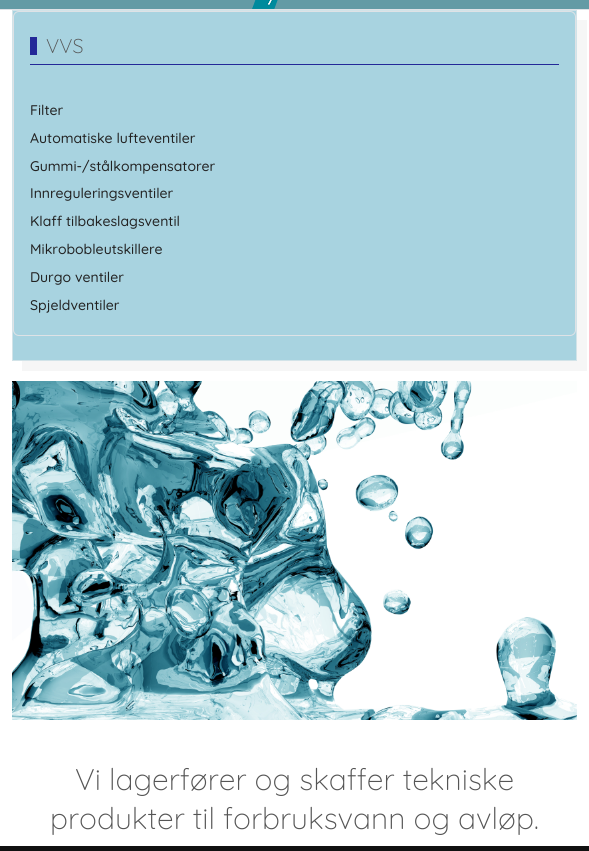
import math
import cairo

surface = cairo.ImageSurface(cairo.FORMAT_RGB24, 589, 851)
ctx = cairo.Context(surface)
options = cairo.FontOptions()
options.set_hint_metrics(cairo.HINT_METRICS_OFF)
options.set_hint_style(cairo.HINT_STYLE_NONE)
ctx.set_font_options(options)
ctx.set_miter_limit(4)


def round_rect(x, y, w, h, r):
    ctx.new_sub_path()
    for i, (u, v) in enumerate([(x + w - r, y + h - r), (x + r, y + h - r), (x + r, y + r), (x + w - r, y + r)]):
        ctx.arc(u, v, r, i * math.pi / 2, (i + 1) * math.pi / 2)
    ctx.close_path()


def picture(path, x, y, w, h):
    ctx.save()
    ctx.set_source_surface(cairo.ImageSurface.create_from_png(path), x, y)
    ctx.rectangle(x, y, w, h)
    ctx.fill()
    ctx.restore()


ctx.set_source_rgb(1, 1, 1)
ctx.paint()
ctx.set_source_rgb(0.388, 0.608, 0.647)
ctx.rectangle(0, 0, 589, 9)
ctx.fill()
ctx.set_source_rgb(0.871, 0.886, 0.902)
ctx.rectangle(0, 9, 589, 1)
ctx.fill()
picture("img1.png", 252, 0, 26, 9)
ctx.set_source_rgb(0.961, 0.961, 0.961)
ctx.new_path()
ctx.move_to(22, 361)
ctx.line_to(22, 371)
ctx.line_to(587, 371)
ctx.line_to(587, 20)
ctx.line_to(577, 20)
ctx.line_to(577, 361)
ctx.close_path()
ctx.fill()
ctx.set_source_rgb(0.659, 0.827, 0.878)
ctx.rectangle(12.5, 10.5, 564, 350)
ctx.fill_preserve()
ctx.set_source_rgb(0.824, 0.89, 0.91)
ctx.set_line_width(1)
ctx.stroke()
round_rect(13.5, 11.5, 562, 324, 5.5)
ctx.set_source_rgb(0.871, 0.886, 0.902)
ctx.stroke()
ctx.set_source_rgb(0.137, 0.157, 0.596)
ctx.rectangle(30, 64, 529, 1)
ctx.fill()
ctx.rectangle(30, 37, 7, 18)
ctx.fill()
ctx.select_font_face("Quicksand Light")
ctx.set_font_size(20)
ctx.set_source_rgb(0.333, 0.333, 0.333)
ctx.move_to(46, 53)
ctx.show_text("VVS")
ctx.select_font_face("Quicksand Medium")
ctx.set_font_size(14)
ctx.set_source_rgb(0.133, 0.133, 0.133)
ctx.move_to(30, 115)
ctx.show_text("Filter")
ctx.move_to(30, 143)
ctx.show_text("Automatiske lufteventiler")
ctx.move_to(30, 171)
ctx.show_text("Gummi-/stålkompensatorer")
ctx.move_to(30, 198)
ctx.show_text("Innreguleringsventiler")
ctx.move_to(30, 226)
ctx.show_text("Klaff tilbakeslagsventil")
ctx.move_to(30, 254)
ctx.show_text("Mikrobobleutskillere")
ctx.move_to(30, 282)
ctx.show_text("Durgo ventiler")
ctx.move_to(30, 310)
ctx.show_text("Spjeldventiler")
picture("img2.png", 12, 381, 565, 339)
ctx.select_font_face("Quicksand Light")
ctx.set_font_size(30)
ctx.set_source_rgb(0.333, 0.333, 0.333)
ctx.move_to(75, 790)
ctx.show_text("Vi lagerfører og skaffer tekniske")
ctx.move_to(50, 829)
ctx.show_text("produkter til forbruksvann og avløp.")
ctx.set_source_rgb(0.067, 0.067, 0.067)
ctx.rectangle(0, 846, 589, 5)
ctx.fill()
surface.write_to_png("page.png")
